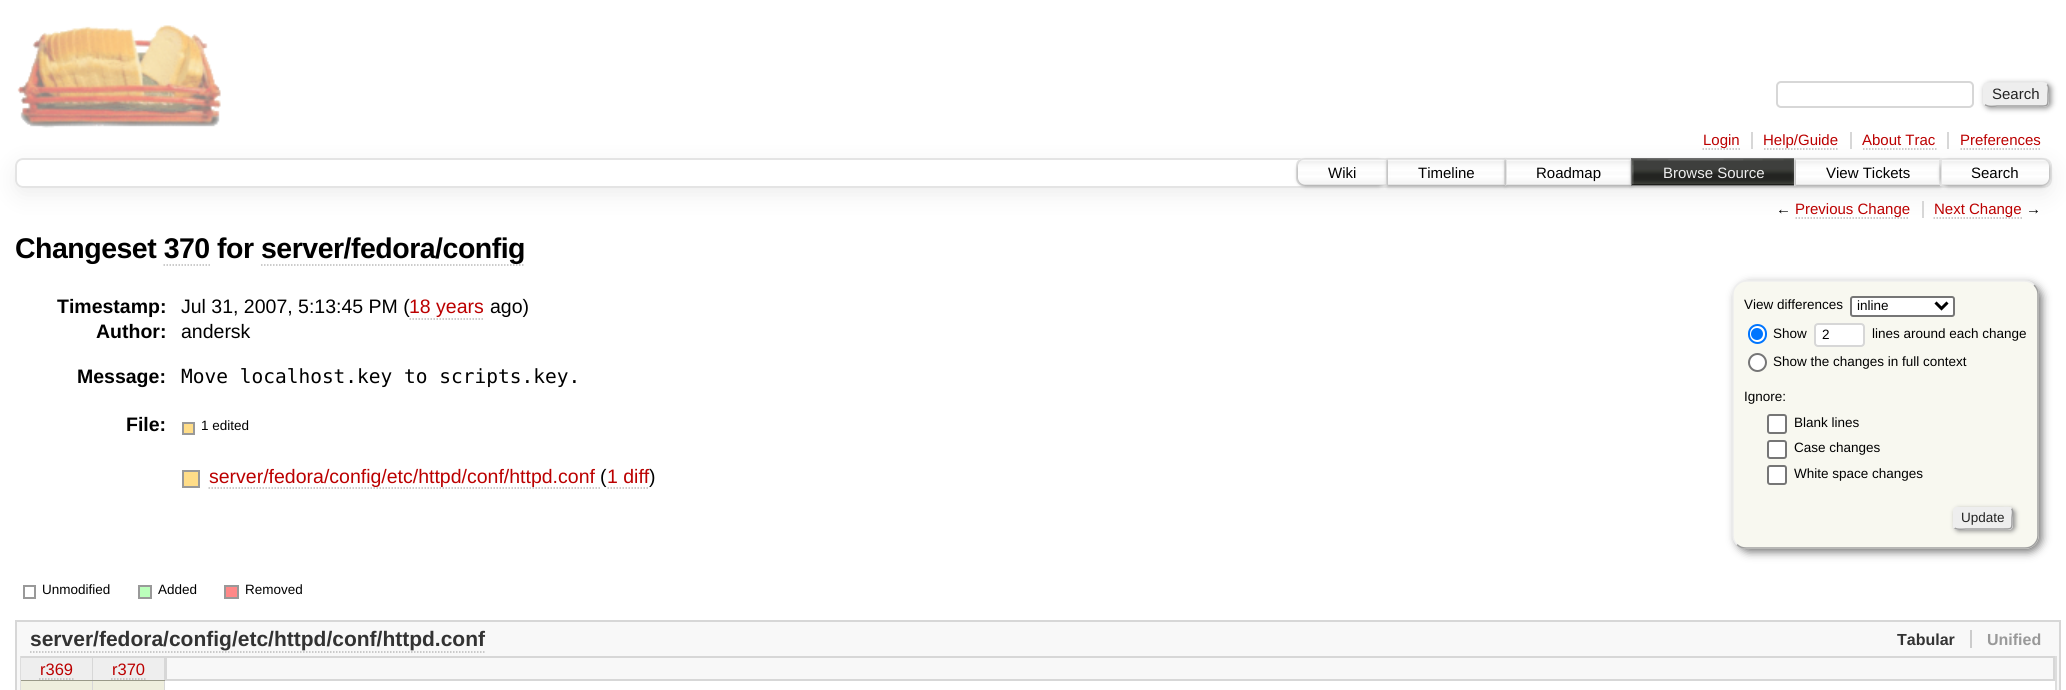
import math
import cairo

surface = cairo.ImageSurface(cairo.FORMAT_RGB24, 2066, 690)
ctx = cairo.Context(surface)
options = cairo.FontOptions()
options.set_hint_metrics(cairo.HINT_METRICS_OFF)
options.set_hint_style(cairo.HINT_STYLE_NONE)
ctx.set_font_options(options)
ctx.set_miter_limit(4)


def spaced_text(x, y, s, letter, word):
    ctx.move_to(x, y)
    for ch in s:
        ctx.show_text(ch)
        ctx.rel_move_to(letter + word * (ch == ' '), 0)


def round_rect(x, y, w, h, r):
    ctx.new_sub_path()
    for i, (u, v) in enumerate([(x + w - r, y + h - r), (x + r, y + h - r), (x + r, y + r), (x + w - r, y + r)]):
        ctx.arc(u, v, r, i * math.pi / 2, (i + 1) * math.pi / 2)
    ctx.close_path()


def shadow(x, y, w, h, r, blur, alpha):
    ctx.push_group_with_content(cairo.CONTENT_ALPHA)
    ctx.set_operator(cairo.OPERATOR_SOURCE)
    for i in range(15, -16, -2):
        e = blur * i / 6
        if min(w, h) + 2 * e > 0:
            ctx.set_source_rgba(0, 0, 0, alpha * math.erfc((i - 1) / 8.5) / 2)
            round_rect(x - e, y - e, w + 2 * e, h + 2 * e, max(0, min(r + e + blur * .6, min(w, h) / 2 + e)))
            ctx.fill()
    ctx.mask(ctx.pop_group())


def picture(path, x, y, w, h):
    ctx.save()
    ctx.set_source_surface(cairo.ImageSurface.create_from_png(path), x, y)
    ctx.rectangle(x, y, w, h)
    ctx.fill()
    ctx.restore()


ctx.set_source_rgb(1, 1, 1)
ctx.paint()
picture("img1.png", 17, 25, 204, 103)
round_rect(1777, 82, 196, 25, 4)
ctx.set_source_rgb(0.843, 0.843, 0.843)
ctx.stroke()
ctx.set_source_rgb(0.533, 0.533, 0.533)
shadow(1985, 84, 66, 24, 5, 3, 1)
ctx.set_source_rgb(0.933, 0.933, 0.933)
round_rect(1983, 83, 66, 24, 5)
ctx.fill()
ctx.new_path()
ctx.move_to(2047, 84.5)
ctx.curve_to(2049.5, 86.5, 2048, 91.5, 2048, 94.5)
ctx.curve_to(2048, 107.5, 2049, 106, 2035, 106)
ctx.line_to(1997, 106)
ctx.curve_to(1996.5, 106, 1987.5, 107.5, 1985, 104.5)
ctx.set_source_rgb(0.624, 0.624, 0.624)
ctx.set_line_width(1.5)
ctx.stroke()
ctx.new_path()
ctx.move_to(1985, 104.5)
ctx.curve_to(1982.5, 102.5, 1984, 97.5, 1984, 94.5)
ctx.curve_to(1984, 81.5, 1983, 83, 1997, 83)
ctx.line_to(2035, 83)
ctx.curve_to(2035.5, 83, 2044.5, 81.5, 2047, 84.5)
ctx.set_source_rgb(0.933, 0.933, 0.933)
ctx.stroke()
ctx.select_font_face("Liberation Sans")
ctx.set_font_size(15)
ctx.set_source_rgb(0.133, 0.133, 0.133)
ctx.move_to(1992, 99)
ctx.show_text("Search")
ctx.save()
ctx.set_fill_rule(cairo.FILL_RULE_EVEN_ODD)
ctx.new_path()
ctx.move_to(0, 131)
ctx.line_to(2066, 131)
ctx.line_to(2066, 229)
ctx.line_to(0, 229)
ctx.close_path()
ctx.move_to(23, 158)
ctx.line_to(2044, 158)
ctx.curve_to(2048.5, 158, 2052, 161.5, 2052, 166)
ctx.line_to(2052, 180)
ctx.curve_to(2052, 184.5, 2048.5, 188, 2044, 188)
ctx.line_to(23, 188)
ctx.curve_to(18.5, 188, 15, 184.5, 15, 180)
ctx.line_to(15, 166)
ctx.curve_to(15, 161.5, 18.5, 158, 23, 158)
ctx.close_path()
ctx.clip()
ctx.set_source_rgb(0.933, 0.933, 0.933)
shadow(15, 165, 2037, 30, 8, 11, 1)
ctx.restore()
ctx.set_source_rgb(0.843, 0.843, 0.843)
ctx.rectangle(1751, 132, 2, 17)
ctx.fill()
ctx.new_path()
ctx.move_to(1702.5, 149)
ctx.line_to(1740, 149)
ctx.set_source_rgb(0.733, 0.733, 0.733)
ctx.set_dash([1.5, 1.5])
ctx.stroke()
ctx.set_source_rgb(0.733, 0, 0)
ctx.move_to(1703, 145)
ctx.show_text("Login")
ctx.set_source_rgb(0.843, 0.843, 0.843)
ctx.rectangle(1850, 132, 2, 17)
ctx.fill()
ctx.new_path()
ctx.move_to(1764, 149)
ctx.line_to(1839, 149)
ctx.set_source_rgb(0.733, 0.733, 0.733)
ctx.stroke()
ctx.set_source_rgb(0.733, 0, 0)
ctx.move_to(1763, 145)
ctx.show_text("Help/Guide")
ctx.set_source_rgb(0.843, 0.843, 0.843)
ctx.rectangle(1947, 132, 2, 17)
ctx.fill()
ctx.set_source_rgb(0.733, 0, 0)
ctx.move_to(1862, 145)
ctx.show_text("About Trac")
ctx.new_path()
ctx.move_to(1863, 149)
ctx.line_to(1936.5, 149)
ctx.set_source_rgb(0.733, 0.733, 0.733)
ctx.stroke()
ctx.set_source_rgb(0.733, 0, 0)
ctx.move_to(1960, 145)
ctx.show_text("Preferences")
ctx.new_path()
ctx.move_to(1960.5, 149)
ctx.line_to(2041.5, 149)
ctx.set_source_rgb(0.733, 0.733, 0.733)
ctx.stroke()
round_rect(16, 159, 2035, 28, 7)
ctx.set_source_rgb(0.894, 0.894, 0.894)
ctx.set_line_width(2)
ctx.set_dash([])
ctx.stroke()
ctx.set_source_rgb(1, 1, 1)
ctx.new_path()
ctx.move_to(1304, 158)
ctx.line_to(1388, 158)
ctx.line_to(1388, 186)
ctx.line_to(1304, 186)
ctx.curve_to(1299.5, 186, 1296, 182.5, 1296, 178)
ctx.line_to(1296, 166)
ctx.curve_to(1296, 161.5, 1299.5, 158, 1304, 158)
ctx.close_path()
ctx.fill()
picture("img2.png", 1296, 160, 90, 26)
ctx.new_path()
ctx.move_to(1304, 159)
ctx.line_to(1387, 159)
ctx.line_to(1387, 185)
ctx.line_to(1304, 185)
ctx.curve_to(1300, 185, 1297, 182, 1297, 178)
ctx.line_to(1297, 166)
ctx.curve_to(1297, 162, 1300, 159, 1304, 159)
ctx.close_path()
ctx.set_source_rgb(0.894, 0.894, 0.894)
ctx.stroke()
ctx.save()
ctx.set_fill_rule(cairo.FILL_RULE_EVEN_ODD)
ctx.new_path()
ctx.move_to(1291, 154)
ctx.line_to(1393, 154)
ctx.line_to(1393, 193)
ctx.line_to(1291, 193)
ctx.close_path()
ctx.move_to(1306, 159)
ctx.line_to(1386, 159)
ctx.line_to(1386, 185)
ctx.line_to(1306, 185)
ctx.curve_to(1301.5, 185, 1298, 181.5, 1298, 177)
ctx.line_to(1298, 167)
ctx.curve_to(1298, 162.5, 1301.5, 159, 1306, 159)
ctx.close_path()
ctx.clip()
ctx.set_source_rgb(0.6, 0.6, 0.6)
shadow(1298, 161, 88, 25, 8, 2, 1)
ctx.restore()
ctx.set_source_rgb(0, 0, 0)
ctx.move_to(1328, 178)
ctx.show_text("Wiki")
ctx.set_source_rgb(1, 1, 1)
ctx.rectangle(1388, 164, 2, 19)
ctx.fill()
picture("img3.png", 1388, 160, 116, 24)
ctx.rectangle(1387, 159, 118, 26)
ctx.set_source_rgb(0.894, 0.894, 0.894)
ctx.stroke()
ctx.save()
ctx.set_fill_rule(cairo.FILL_RULE_EVEN_ODD)
ctx.new_path()
ctx.move_to(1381, 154)
ctx.line_to(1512, 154)
ctx.line_to(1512, 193)
ctx.line_to(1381, 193)
ctx.close_path()
ctx.move_to(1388, 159)
ctx.line_to(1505, 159)
ctx.line_to(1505, 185)
ctx.line_to(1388, 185)
ctx.close_path()
ctx.clip()
ctx.set_source_rgb(0.6, 0.6, 0.6)
shadow(1388, 161, 117, 25, 0, 2, 1)
ctx.restore()
ctx.set_source_rgb(0, 0, 0)
ctx.move_to(1418, 178)
ctx.show_text("Timeline")
ctx.set_source_rgb(1, 1, 1)
ctx.rectangle(1507, 160, 2, 24)
ctx.fill()
picture("img4.png", 1504, 160, 126, 24)
ctx.rectangle(1506, 159, 125, 26)
ctx.set_source_rgb(0.894, 0.894, 0.894)
ctx.stroke()
ctx.save()
ctx.set_fill_rule(cairo.FILL_RULE_EVEN_ODD)
ctx.new_path()
ctx.move_to(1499, 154)
ctx.line_to(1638, 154)
ctx.line_to(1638, 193)
ctx.line_to(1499, 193)
ctx.close_path()
ctx.move_to(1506, 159)
ctx.line_to(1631, 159)
ctx.line_to(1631, 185)
ctx.line_to(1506, 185)
ctx.close_path()
ctx.clip()
ctx.set_source_rgb(0.6, 0.6, 0.6)
shadow(1506, 161, 125, 25, 0, 2, 1)
ctx.restore()
ctx.set_source_rgb(0, 0, 0)
ctx.move_to(1536, 178)
ctx.show_text("Roadmap")
picture("img5.png", 1630, 161, 1, 8)
ctx.rectangle(1632, 159, 163, 26)
ctx.set_source_rgb(0.4, 0.4, 0.4)
ctx.stroke()
ctx.set_source_rgb(0.6, 0.6, 0.6)
shadow(1632, 161, 162, 25, 0, 2, 1)
ctx.set_source_rgb(0, 0, 0)
ctx.rectangle(1632, 159, 162, 26)
ctx.fill()
picture("img6.png", 1632, 159, 162, 26)
ctx.set_source_rgb(0.933, 0.933, 0.933)
ctx.move_to(1663, 178)
ctx.show_text("Browse Source")
ctx.set_source_rgb(1, 1, 1)
ctx.rectangle(1796, 160, 2, 24)
ctx.fill()
picture("img7.png", 1796, 160, 143, 24)
ctx.rectangle(1795, 159, 145, 26)
ctx.set_source_rgb(0.894, 0.894, 0.894)
ctx.stroke()
ctx.save()
ctx.set_fill_rule(cairo.FILL_RULE_EVEN_ODD)
ctx.new_path()
ctx.move_to(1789, 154)
ctx.line_to(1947, 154)
ctx.line_to(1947, 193)
ctx.line_to(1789, 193)
ctx.close_path()
ctx.move_to(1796, 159)
ctx.line_to(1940, 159)
ctx.line_to(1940, 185)
ctx.line_to(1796, 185)
ctx.close_path()
ctx.clip()
ctx.set_source_rgb(0.6, 0.6, 0.6)
shadow(1796, 161, 144, 25, 0, 2, 1)
ctx.restore()
ctx.set_source_rgb(0, 0, 0)
ctx.move_to(1826, 178)
ctx.show_text("View Tickets")
ctx.set_source_rgb(1, 1, 1)
ctx.new_path()
ctx.move_to(1940, 158)
ctx.line_to(2043, 158)
ctx.curve_to(2047.5, 158, 2051, 161.5, 2051, 166)
ctx.line_to(2051, 178)
ctx.curve_to(2051, 182.5, 2047.5, 186, 2043, 186)
ctx.line_to(1940, 186)
ctx.close_path()
ctx.fill()
picture("img8.png", 1942, 160, 108, 26)
ctx.new_path()
ctx.move_to(1941, 159)
ctx.line_to(2043, 159)
ctx.curve_to(2047, 159, 2050, 162, 2050, 166)
ctx.line_to(2050, 178)
ctx.curve_to(2050, 182, 2047, 185, 2043, 185)
ctx.line_to(1941, 185)
ctx.close_path()
ctx.set_source_rgb(0.894, 0.894, 0.894)
ctx.stroke()
ctx.save()
ctx.set_fill_rule(cairo.FILL_RULE_EVEN_ODD)
ctx.new_path()
ctx.move_to(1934, 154)
ctx.line_to(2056, 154)
ctx.line_to(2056, 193)
ctx.line_to(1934, 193)
ctx.close_path()
ctx.move_to(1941, 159)
ctx.line_to(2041, 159)
ctx.curve_to(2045.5, 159, 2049, 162.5, 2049, 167)
ctx.line_to(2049, 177)
ctx.curve_to(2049, 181.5, 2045.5, 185, 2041, 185)
ctx.line_to(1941, 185)
ctx.close_path()
ctx.clip()
ctx.set_source_rgb(0.6, 0.6, 0.6)
shadow(1941, 161, 108, 25, 8, 2, 1)
ctx.restore()
ctx.set_source_rgb(0, 0, 0)
ctx.move_to(1971, 178)
ctx.show_text("Search")
ctx.set_source_rgb(0.843, 0.843, 0.843)
ctx.rectangle(1922, 201, 2, 17)
ctx.fill()
ctx.set_source_rgb(0, 0, 0)
ctx.move_to(1776, 214)
ctx.show_text("←")
ctx.new_path()
ctx.move_to(1795.5, 218)
ctx.line_to(1909.5, 218)
ctx.set_source_rgb(0.733, 0.733, 0.733)
ctx.set_line_width(1.5)
ctx.set_dash([1.5, 1.5])
ctx.stroke()
ctx.set_source_rgb(0.733, 0, 0)
ctx.move_to(1795, 214)
ctx.show_text("Previous Change")
ctx.new_path()
ctx.move_to(1933.5, 218)
ctx.line_to(2022, 218)
ctx.set_source_rgb(0.733, 0.733, 0.733)
ctx.stroke()
ctx.set_source_rgb(0.733, 0, 0)
ctx.move_to(1934, 214)
ctx.show_text("Next Change")
ctx.set_source_rgb(0, 0, 0)
ctx.move_to(2026, 214)
ctx.show_text("→")
ctx.select_font_face("Liberation Sans", cairo.FONT_SLANT_NORMAL, cairo.FONT_WEIGHT_BOLD)
ctx.set_font_size(28.5)
spaced_text(15, 258, "Changeset 370 for", -0.5, 0)
ctx.new_path()
ctx.move_to(261, 265)
ctx.line_to(525, 265)
ctx.set_source_rgb(0.733, 0.733, 0.733)
ctx.stroke()
ctx.set_source_rgb(0, 0, 0)
spaced_text(261, 258, "server/fedora/config", -0.5, 0)
ctx.new_path()
ctx.move_to(163.5, 265)
ctx.line_to(210, 265)
ctx.set_source_rgb(0.733, 0.733, 0.733)
ctx.stroke()
ctx.set_font_size(19.5)
ctx.set_source_rgb(0, 0, 0)
ctx.move_to(57, 313)
ctx.show_text("Timestamp:")
ctx.select_font_face("Liberation Sans")
ctx.move_to(181, 313)
ctx.show_text("Jul 31, 2007, 5:13:45 PM (")
ctx.set_source_rgb(0.733, 0, 0)
ctx.move_to(409, 313)
ctx.show_text("18 years")
ctx.new_path()
ctx.move_to(409.5, 319)
ctx.line_to(484.5, 319)
ctx.set_source_rgb(0.733, 0.733, 0.733)
ctx.stroke()
ctx.set_source_rgb(0, 0, 0)
ctx.move_to(490, 313)
ctx.show_text("ago)")
ctx.select_font_face("Liberation Sans", cairo.FONT_SLANT_NORMAL, cairo.FONT_WEIGHT_BOLD)
ctx.move_to(96, 338)
ctx.show_text("Author:")
ctx.select_font_face("Liberation Sans")
ctx.move_to(181, 338)
ctx.show_text("andersk")
ctx.select_font_face("Liberation Sans", cairo.FONT_SLANT_NORMAL, cairo.FONT_WEIGHT_BOLD)
ctx.move_to(77, 383)
ctx.show_text("Message:")
ctx.select_font_face("DejaVu Sans Mono")
ctx.move_to(181, 383)
ctx.show_text("Move localhost.key to scripts.key.")
ctx.select_font_face("Liberation Sans", cairo.FONT_SLANT_NORMAL, cairo.FONT_WEIGHT_BOLD)
ctx.move_to(126, 431)
ctx.show_text("File:")
ctx.set_source_rgb(1, 0.867, 0.533)
ctx.rectangle(183, 423, 11, 11)
ctx.fill_preserve()
ctx.set_source_rgb(0.6, 0.6, 0.6)
ctx.set_line_width(2)
ctx.set_dash([])
ctx.stroke()
ctx.select_font_face("Liberation Sans")
ctx.set_font_size(13.5)
ctx.set_source_rgb(0, 0, 0)
ctx.move_to(201, 430)
ctx.show_text("1 edited")
ctx.set_source_rgb(1, 0.867, 0.533)
ctx.rectangle(183, 471, 16, 16)
ctx.fill_preserve()
ctx.set_source_rgb(0.6, 0.6, 0.6)
ctx.stroke()
ctx.new_path()
ctx.move_to(208.5, 488)
ctx.line_to(600, 488)
ctx.set_source_rgb(0.733, 0.733, 0.733)
ctx.set_line_width(1.5)
ctx.set_dash([1.5, 1.5])
ctx.stroke()
ctx.set_font_size(19.5)
ctx.set_source_rgb(0.733, 0, 0)
ctx.move_to(209, 483)
ctx.show_text("server/fedora/config/etc/httpd/conf/httpd.conf")
ctx.set_source_rgb(0, 0, 0)
ctx.move_to(600, 483)
ctx.show_text("(")
ctx.set_source_rgb(0.733, 0, 0)
ctx.move_to(607, 483)
ctx.show_text("1 diff")
ctx.new_path()
ctx.move_to(607.5, 488)
ctx.line_to(649.5, 488)
ctx.set_source_rgb(0.733, 0.733, 0.733)
ctx.stroke()
ctx.set_source_rgb(0, 0, 0)
ctx.move_to(649, 483)
ctx.show_text(")")
ctx.set_source_rgb(0.467, 0.467, 0.467)
shadow(1736, 284, 306, 268, 14, 4.5, 1)
ctx.set_source_rgb(0.969, 0.969, 0.941)
round_rect(1733, 281, 306, 268, 14)
ctx.fill()
ctx.new_path()
ctx.move_to(2034, 285)
ctx.curve_to(2036.5, 287.5, 2038, 290.5, 2038, 294)
ctx.line_to(2038, 535.5)
ctx.curve_to(2038, 539, 2036.5, 542, 2034, 544.5)
ctx.curve_to(2031.5, 547, 2028.5, 548, 2025, 548)
ctx.line_to(1746, 548)
ctx.curve_to(1742.5, 548, 1739.5, 547, 1737, 544.5)
ctx.set_source_rgb(0.624, 0.624, 0.624)
ctx.set_dash([])
ctx.stroke()
ctx.new_path()
ctx.move_to(1737, 544.5)
ctx.curve_to(1734.5, 542, 1733, 539, 1733, 535.5)
ctx.line_to(1733, 294)
ctx.curve_to(1733, 290.5, 1734.5, 287.5, 1737, 285)
ctx.curve_to(1739.5, 282.5, 1742.5, 281, 1746, 281)
ctx.line_to(2025, 281)
ctx.curve_to(2028.5, 281, 2031.5, 282.5, 2034, 285)
ctx.set_source_rgb(0.933, 0.933, 0.933)
ctx.stroke()
ctx.set_font_size(13.5)
ctx.set_source_rgb(0, 0, 0)
ctx.move_to(1744, 309)
ctx.show_text("View differences")
ctx.set_source_rgb(1, 1, 1)
round_rect(1851, 297, 103, 19, 2)
ctx.fill_preserve()
ctx.set_source_rgb(0.463, 0.463, 0.463)
ctx.set_line_width(2)
ctx.stroke()
ctx.new_path()
ctx.move_to(1935.5, 302.5)
ctx.line_to(1941.5, 308.5)
ctx.line_to(1947.5, 302.5)
ctx.set_source_rgb(0, 0, 0)
ctx.set_line_width(3)
ctx.stroke()
ctx.move_to(1857, 310)
ctx.show_text("inline")
ctx.set_source_rgb(1, 1, 1)
round_rect(1749, 325, 17, 18, 8.5)
ctx.fill_preserve()
ctx.set_source_rgb(0, 0.459, 1)
ctx.set_line_width(2)
ctx.stroke()
ctx.arc(1757, 334, 6, 0, 2 * math.pi)
ctx.fill()
ctx.set_source_rgb(0, 0, 0)
ctx.move_to(1773, 338)
ctx.show_text("Show")
ctx.set_source_rgb(1, 1, 1)
round_rect(1815, 324, 49, 22, 3)
ctx.fill_preserve()
ctx.set_source_rgb(0.843, 0.843, 0.843)
ctx.stroke()
ctx.set_source_rgb(0, 0, 0)
ctx.move_to(1822, 339)
ctx.show_text("2")
ctx.move_to(1872, 338)
ctx.show_text("lines around each change")
ctx.set_source_rgb(1, 1, 1)
ctx.new_path()
ctx.arc(1757.5, 362.5, 8.5, 0, 2 * math.pi)
ctx.fill_preserve()
ctx.set_source_rgb(0.463, 0.463, 0.463)
ctx.stroke()
ctx.set_source_rgb(0, 0, 0)
ctx.move_to(1773, 366)
ctx.show_text("Show the changes in full context")
ctx.move_to(1744, 401)
ctx.show_text("Ignore:")
ctx.set_source_rgb(1, 1, 1)
round_rect(1768, 415, 18, 18, 2)
ctx.fill_preserve()
ctx.set_source_rgb(0.463, 0.463, 0.463)
ctx.stroke()
ctx.set_source_rgb(0, 0, 0)
ctx.move_to(1794, 427)
ctx.show_text("Blank lines")
ctx.set_source_rgb(1, 1, 1)
round_rect(1768, 441, 18, 17, 2)
ctx.fill_preserve()
ctx.set_source_rgb(0.463, 0.463, 0.463)
ctx.stroke()
ctx.set_source_rgb(0, 0, 0)
ctx.move_to(1794, 452)
ctx.show_text("Case changes")
ctx.set_source_rgb(1, 1, 1)
round_rect(1768, 466, 18, 18, 2)
ctx.fill_preserve()
ctx.set_source_rgb(0.463, 0.463, 0.463)
ctx.stroke()
ctx.set_source_rgb(0, 0, 0)
ctx.move_to(1794, 478)
ctx.show_text("White space changes")
ctx.set_source_rgb(0.533, 0.533, 0.533)
shadow(1955, 509, 60, 22, 4, 2.5, 1)
ctx.set_source_rgb(0.933, 0.933, 0.933)
round_rect(1953, 507, 60, 23, 4)
ctx.fill()
ctx.new_path()
ctx.move_to(2011.5, 508.5)
ctx.curve_to(2013.5, 511, 2012, 515.5, 2012, 518)
ctx.curve_to(2012, 530, 2013, 529, 2000.5, 529)
ctx.line_to(1965.5, 529)
ctx.curve_to(1965.5, 529, 1957, 530, 1954.5, 528)
ctx.set_source_rgb(0.624, 0.624, 0.624)
ctx.set_line_width(1.5)
ctx.stroke()
ctx.new_path()
ctx.move_to(1954.5, 528)
ctx.curve_to(1952.5, 525.5, 1954, 521, 1954, 518)
ctx.curve_to(1954, 506.5, 1953, 508, 1965.5, 508)
ctx.line_to(2000.5, 508)
ctx.curve_to(2000.5, 508, 2009, 506.5, 2011.5, 508.5)
ctx.set_source_rgb(0.933, 0.933, 0.933)
ctx.stroke()
ctx.set_source_rgb(0.133, 0.133, 0.133)
ctx.move_to(1961, 522)
ctx.show_text("Update")
ctx.rectangle(24, 586, 11, 12)
ctx.set_source_rgb(0.6, 0.6, 0.6)
ctx.set_line_width(2)
ctx.stroke()
ctx.set_source_rgb(0, 0, 0)
ctx.move_to(42, 594)
ctx.show_text("Unmodified")
ctx.set_source_rgb(0.733, 1, 0.733)
ctx.rectangle(139, 586, 12, 12)
ctx.fill_preserve()
ctx.set_source_rgb(0.6, 0.6, 0.6)
ctx.stroke()
ctx.set_source_rgb(0, 0, 0)
ctx.move_to(158, 594)
ctx.show_text("Added")
ctx.set_source_rgb(1, 0.533, 0.533)
ctx.rectangle(225, 586, 13, 12)
ctx.fill_preserve()
ctx.set_source_rgb(0.6, 0.6, 0.6)
ctx.stroke()
ctx.set_source_rgb(0, 0, 0)
ctx.move_to(245, 594)
ctx.show_text("Removed")
ctx.set_source_rgb(0.969, 0.969, 0.969)
ctx.rectangle(16, 621, 2044, 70)
ctx.fill_preserve()
ctx.set_source_rgb(0.843, 0.843, 0.843)
ctx.stroke()
ctx.select_font_face("Liberation Sans", cairo.FONT_SLANT_NORMAL, cairo.FONT_WEIGHT_BOLD)
ctx.set_font_size(21)
ctx.set_source_rgb(0.2, 0.2, 0.2)
ctx.move_to(30, 646)
ctx.show_text("server/fedora/config/etc/httpd/conf/httpd.conf")
ctx.new_path()
ctx.move_to(30, 652)
ctx.line_to(484.5, 652)
ctx.set_source_rgb(0.733, 0.733, 0.733)
ctx.set_line_width(1.5)
ctx.set_dash([1.5, 1.5])
ctx.stroke()
ctx.set_font_size(16)
ctx.set_source_rgb(0.2, 0.2, 0.2)
ctx.move_to(1897, 645)
ctx.show_text("Tabular")
ctx.set_source_rgb(0.6, 0.6, 0.6)
ctx.move_to(1987, 645)
ctx.show_text("Unified")
ctx.set_source_rgb(0.8, 0.8, 0.8)
ctx.rectangle(1970, 630, 2, 18)
ctx.fill()
ctx.set_source_rgb(0.867, 0.867, 0.867)
ctx.rectangle(2055, 656, 2, 34)
ctx.fill()
ctx.rectangle(20, 656, 1, 34)
ctx.fill()
ctx.set_source_rgb(0.933, 0.933, 0.933)
ctx.rectangle(21, 658, 71, 22)
ctx.fill()
ctx.set_source_rgb(0.843, 0.843, 0.843)
ctx.rectangle(21, 656, 144, 2)
ctx.fill()
ctx.rectangle(92, 656, 1, 34)
ctx.fill()
ctx.set_source_rgb(0.6, 0.6, 0.533)
ctx.rectangle(21, 680, 72, 1)
ctx.fill()
ctx.select_font_face("Liberation Sans")
ctx.set_font_size(16.5)
ctx.set_source_rgb(0.733, 0, 0)
ctx.move_to(40, 675)
ctx.show_text("r369")
ctx.new_path()
ctx.move_to(39, 679)
ctx.line_to(73.5, 679)
ctx.set_source_rgb(0.733, 0.733, 0.733)
ctx.stroke()
ctx.set_source_rgb(0.933, 0.933, 0.933)
ctx.rectangle(93, 658, 71, 22)
ctx.fill()
ctx.set_source_rgb(0.843, 0.843, 0.843)
ctx.rectangle(164, 656, 1, 34)
ctx.fill()
ctx.set_source_rgb(0.6, 0.6, 0.533)
ctx.rectangle(93, 680, 72, 1)
ctx.fill()
ctx.set_source_rgb(0.733, 0, 0)
ctx.move_to(112, 675)
ctx.show_text("r370")
ctx.new_path()
ctx.move_to(111, 679)
ctx.line_to(145.5, 679)
ctx.set_source_rgb(0.733, 0.733, 0.733)
ctx.stroke()
ctx.rectangle(166, 657, 1888, 23)
ctx.set_source_rgb(0.843, 0.843, 0.843)
ctx.set_line_width(2)
ctx.set_dash([])
ctx.stroke()
ctx.set_source_rgb(0.933, 0.933, 0.867)
ctx.rectangle(21, 681, 71, 9)
ctx.fill()
ctx.rectangle(93, 681, 71, 9)
ctx.fill()
ctx.set_source_rgb(1, 1, 1)
ctx.rectangle(165, 681, 1890, 9)
ctx.fill()
surface.write_to_png("page.png")
